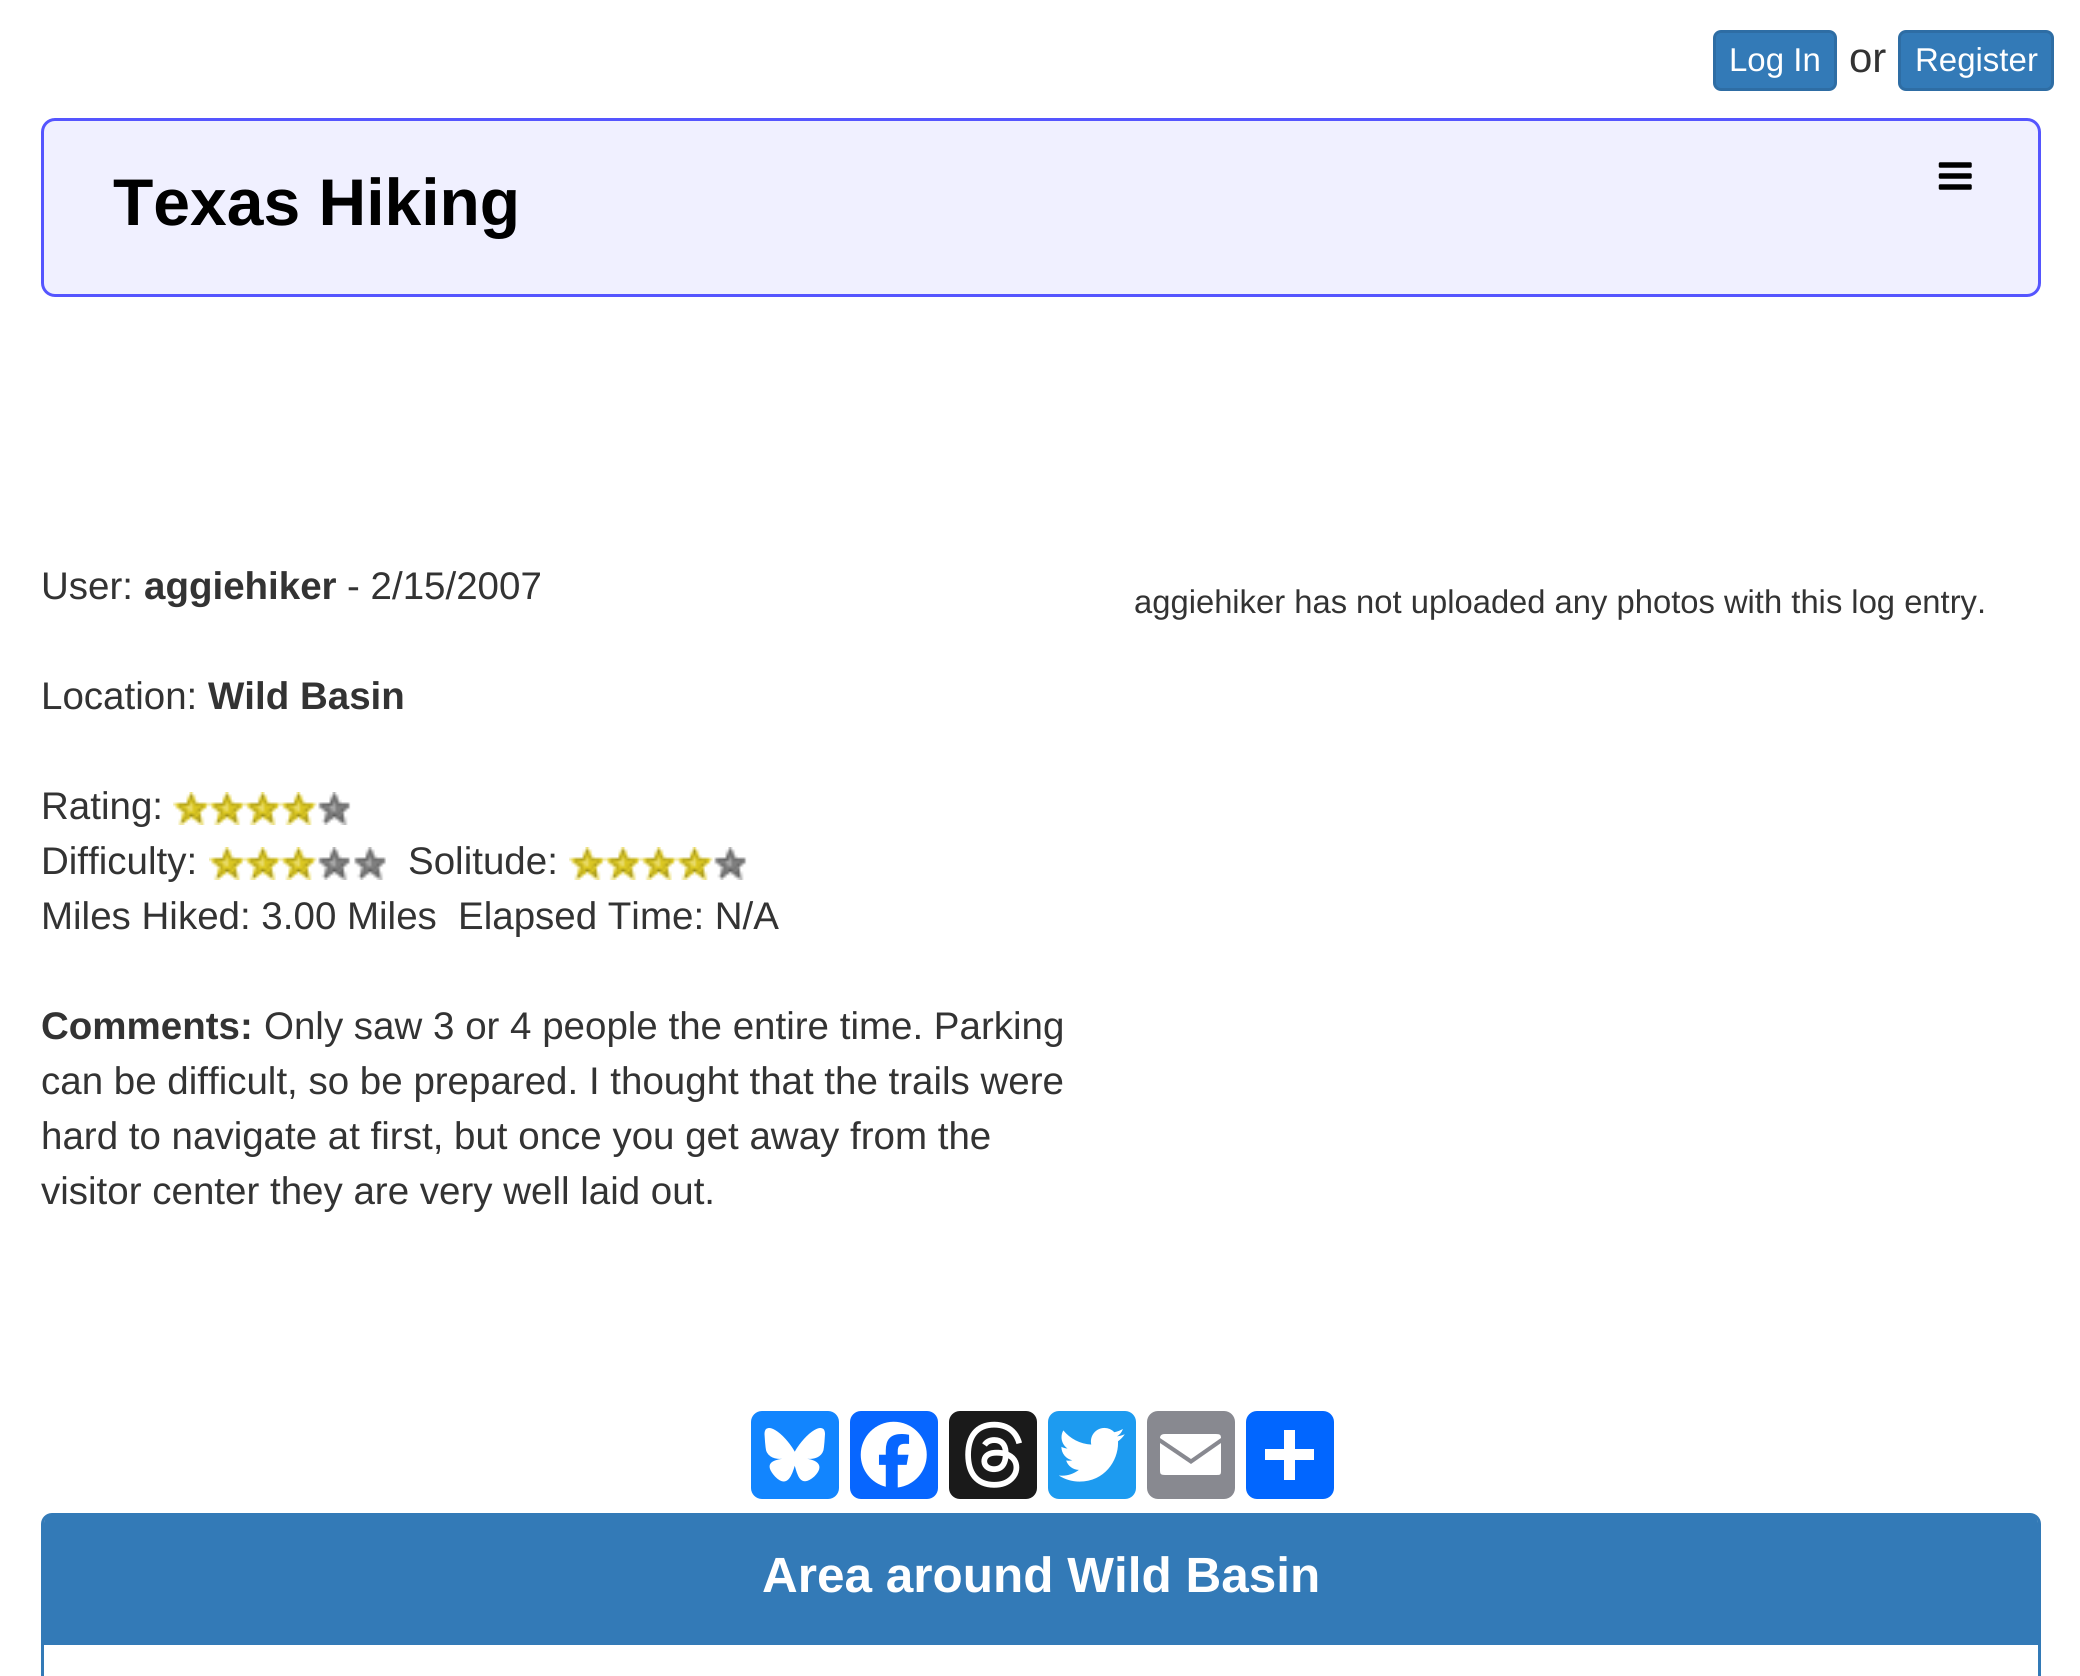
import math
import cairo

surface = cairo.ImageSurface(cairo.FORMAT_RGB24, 2080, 1676)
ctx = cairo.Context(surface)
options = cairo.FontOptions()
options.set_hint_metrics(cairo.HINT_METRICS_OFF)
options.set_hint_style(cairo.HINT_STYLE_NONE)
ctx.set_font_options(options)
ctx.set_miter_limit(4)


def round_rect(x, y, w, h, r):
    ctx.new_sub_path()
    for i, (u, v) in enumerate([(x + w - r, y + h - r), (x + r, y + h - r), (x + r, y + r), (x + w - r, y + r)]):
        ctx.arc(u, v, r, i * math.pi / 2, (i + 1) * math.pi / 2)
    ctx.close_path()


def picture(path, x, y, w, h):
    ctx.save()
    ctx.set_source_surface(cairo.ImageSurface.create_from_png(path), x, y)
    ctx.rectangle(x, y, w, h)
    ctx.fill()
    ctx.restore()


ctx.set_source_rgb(1, 1, 1)
ctx.paint()
ctx.set_source_rgb(0.2, 0.478, 0.718)
round_rect(1714.5, 31.5, 121, 58, 6.5)
ctx.fill_preserve()
ctx.set_source_rgb(0.18, 0.427, 0.643)
ctx.set_line_width(3)
ctx.stroke()
ctx.select_font_face("Liberation Sans")
ctx.set_font_size(33)
ctx.set_source_rgb(1, 1, 1)
ctx.move_to(1729, 71)
ctx.show_text("Log In")
ctx.set_font_size(42)
ctx.set_source_rgb(0.2, 0.2, 0.2)
ctx.move_to(1849, 72)
ctx.show_text("or")
ctx.set_source_rgb(0.2, 0.478, 0.718)
round_rect(1899.5, 31.5, 153, 58, 6.5)
ctx.fill_preserve()
ctx.set_source_rgb(0.18, 0.427, 0.643)
ctx.stroke()
ctx.set_font_size(33)
ctx.set_source_rgb(1, 1, 1)
ctx.move_to(1915, 71)
ctx.show_text("Register")
ctx.set_source_rgb(0.941, 0.941, 1)
round_rect(42.5, 119.5, 1997, 176, 12.5)
ctx.fill_preserve()
ctx.set_source_rgb(0.333, 0.333, 1)
ctx.stroke()
ctx.select_font_face("Liberation Sans", cairo.FONT_SLANT_NORMAL, cairo.FONT_WEIGHT_BOLD)
ctx.set_font_size(66)
ctx.set_source_rgb(0, 0, 0)
ctx.move_to(113, 225)
ctx.show_text("Texas Hiking")
picture("img1.png", 1938, 162, 34, 28)
ctx.select_font_face("Liberation Sans")
ctx.set_font_size(38.5)
ctx.set_source_rgb(0.2, 0.2, 0.2)
ctx.move_to(41, 599)
ctx.show_text("User:")
ctx.select_font_face("Liberation Sans", cairo.FONT_SLANT_NORMAL, cairo.FONT_WEIGHT_BOLD)
ctx.move_to(144, 599)
ctx.show_text("aggiehiker")
ctx.select_font_face("Liberation Sans")
ctx.move_to(347, 599)
ctx.show_text("- 2/15/2007")
ctx.move_to(41, 709)
ctx.show_text("Location:")
ctx.select_font_face("Liberation Sans", cairo.FONT_SLANT_NORMAL, cairo.FONT_WEIGHT_BOLD)
ctx.move_to(208, 709)
ctx.show_text("Wild Basin")
ctx.select_font_face("Liberation Sans")
ctx.move_to(41, 819)
ctx.show_text("Rating:")
picture("img2.png", 173, 792, 178, 33)
ctx.move_to(41, 874)
ctx.show_text("Difficulty:")
picture("img3.png", 209, 847, 177, 33)
ctx.move_to(408, 874)
ctx.show_text("Solitude:")
picture("img2.png", 569, 847, 178, 33)
ctx.move_to(41, 929)
ctx.show_text("Miles Hiked: 3.00 Miles")
ctx.move_to(458, 929)
ctx.show_text("Elapsed Time: N/A")
ctx.select_font_face("Liberation Sans", cairo.FONT_SLANT_NORMAL, cairo.FONT_WEIGHT_BOLD)
ctx.move_to(41, 1039)
ctx.show_text("Comments:")
ctx.select_font_face("Liberation Sans")
ctx.move_to(264, 1039)
ctx.show_text("Only saw 3 or 4 people the entire time. Parking")
ctx.move_to(41, 1094)
ctx.show_text("can be difficult, so be prepared. I thought that the trails were")
ctx.move_to(41, 1149)
ctx.show_text("hard to navigate at first, but once you get away from the")
ctx.move_to(41, 1204)
ctx.show_text("visitor center they are very well laid out.")
ctx.set_font_size(32.75)
ctx.move_to(1134, 613)
ctx.show_text("aggiehiker has not uploaded any photos with this log entry.")
ctx.set_source_rgb(0.071, 0.522, 0.996)
round_rect(751, 1411, 88, 88, 11)
ctx.fill()
picture("img4.png", 764, 1428, 61, 54)
ctx.set_source_rgb(0.031, 0.4, 1)
round_rect(850, 1411, 88, 88, 11)
ctx.fill()
picture("img5.png", 860, 1421, 67, 67)
ctx.set_source_rgb(0.102, 0.102, 0.102)
round_rect(949, 1411, 88, 88, 11)
ctx.fill()
picture("img6.png", 965, 1421, 57, 67)
ctx.set_source_rgb(0.114, 0.608, 0.941)
round_rect(1048, 1411, 88, 88, 11)
ctx.fill()
picture("img7.png", 1059, 1427, 66, 55)
ctx.set_source_rgb(0.533, 0.537, 0.565)
round_rect(1147, 1411, 88, 88, 11)
ctx.fill()
ctx.set_source_rgb(1, 1, 1)
ctx.new_path()
ctx.move_to(1221, 1471)
ctx.line_to(1221, 1443)
ctx.line_to(1191, 1464)
ctx.line_to(1160, 1443)
ctx.line_to(1160, 1471)
ctx.curve_to(1160, 1474, 1161, 1475, 1165, 1475)
ctx.line_to(1216, 1475)
ctx.curve_to(1220, 1475, 1221, 1475, 1221, 1471)
ctx.move_to(1221, 1438)
ctx.curve_to(1221, 1435, 1220, 1434, 1216, 1434)
ctx.line_to(1165, 1434)
ctx.curve_to(1161, 1434, 1160, 1436, 1160, 1438)
ctx.line_to(1191, 1459)
ctx.close_path()
ctx.fill()
ctx.set_source_rgb(0.004, 0.4, 1)
round_rect(1246, 1411, 88, 88, 11)
ctx.fill()
ctx.set_source_rgb(1, 1, 1)
ctx.rectangle(1284, 1430, 11, 50)
ctx.fill()
ctx.rectangle(1265, 1449, 49, 11)
ctx.fill()
round_rect(42.5, 1514.5, 1997, 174, 9.5)
ctx.set_source_rgb(0.2, 0.478, 0.718)
ctx.stroke()
ctx.new_path()
ctx.move_to(52, 1515)
ctx.line_to(2030, 1515)
ctx.curve_to(2034.5, 1515, 2038, 1518.5, 2038, 1523)
ctx.line_to(2038, 1645)
ctx.line_to(44, 1645)
ctx.line_to(44, 1523)
ctx.curve_to(44, 1518.5, 47.5, 1515, 52, 1515)
ctx.close_path()
ctx.fill()
ctx.select_font_face("Liberation Sans", cairo.FONT_SLANT_NORMAL, cairo.FONT_WEIGHT_BOLD)
ctx.set_font_size(49.5)
ctx.set_source_rgb(1, 1, 1)
ctx.move_to(762, 1592)
ctx.show_text("Area around Wild Basin")
surface.write_to_png("page.png")
